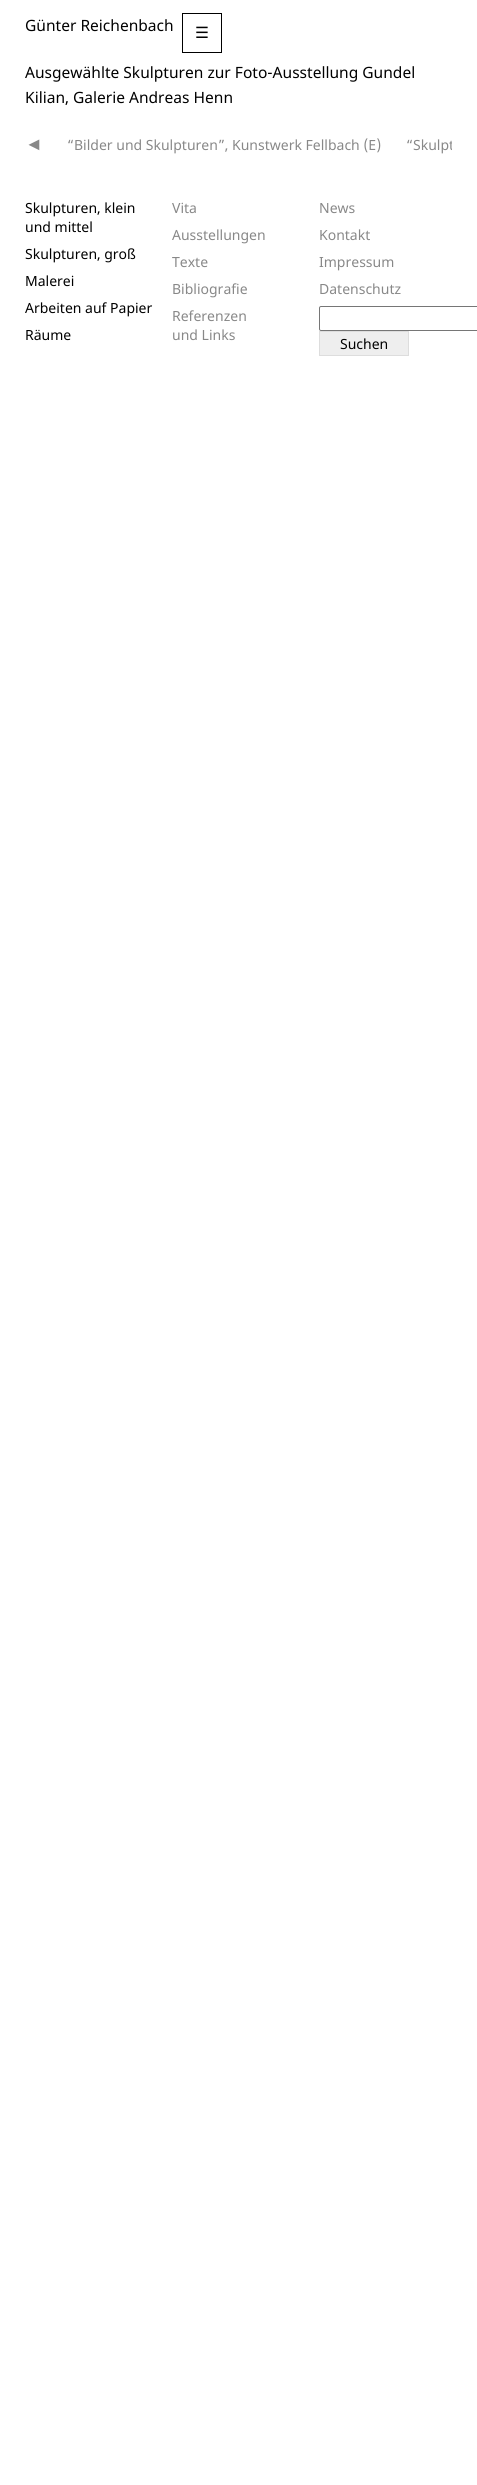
import math
import cairo

surface = cairo.ImageSurface(cairo.FORMAT_RGB24, 477, 2485)
ctx = cairo.Context(surface)
options = cairo.FontOptions()
options.set_hint_metrics(cairo.HINT_METRICS_OFF)
options.set_hint_style(cairo.HINT_STYLE_NONE)
ctx.set_font_options(options)
ctx.set_miter_limit(4)


def round_rect(x, y, w, h, r):
    ctx.new_sub_path()
    for i, (u, v) in enumerate([(x + w - r, y + h - r), (x + r, y + h - r), (x + r, y + r), (x + w - r, y + r)]):
        ctx.arc(u, v, r, i * math.pi / 2, (i + 1) * math.pi / 2)
    ctx.close_path()


ctx.set_source_rgb(1, 1, 1)
ctx.paint()
ctx.select_font_face("Noto Sans")
ctx.set_font_size(15.55)
ctx.set_source_rgb(0, 0, 0)
ctx.move_to(25, 31)
ctx.show_text("Günter Reichenbach")
ctx.rectangle(182.5, 13.5, 39, 39)
ctx.set_line_width(1)
ctx.stroke()
ctx.select_font_face("DejaVu Sans")
ctx.move_to(195, 38)
ctx.show_text("☰")
ctx.select_font_face("Noto Sans")
ctx.move_to(25, 78)
ctx.show_text("Ausgewählte Skulpturen zur Foto-Ausstellung Gundel")
ctx.move_to(25, 103)
ctx.show_text("Kilian, Galerie Andreas Henn")
ctx.set_font_size(18)
ctx.set_source_rgb(0.533, 0.533, 0.533)
ctx.move_to(25, 150)
ctx.show_text("◄")
ctx.set_font_size(14)
ctx.move_to(67, 150)
ctx.show_text("“Bilder und Skulpturen”, Kunstwerk Fellbach (E)")
ctx.save()
ctx.rectangle(25, 131, 427, 24)
ctx.clip()
ctx.move_to(406, 150)
ctx.show_text("“Skulpt")
ctx.restore()
ctx.set_source_rgb(0, 0, 0)
ctx.move_to(25, 213)
ctx.show_text("Skulpturen, klein")
ctx.move_to(25, 232)
ctx.show_text("und mittel")
ctx.move_to(25, 259)
ctx.show_text("Skulpturen, groß")
ctx.move_to(25, 286)
ctx.show_text("Malerei")
ctx.move_to(25, 313)
ctx.show_text("Arbeiten auf Papier")
ctx.move_to(25, 340)
ctx.show_text("Räume")
ctx.set_source_rgb(0.533, 0.533, 0.533)
ctx.move_to(172, 213)
ctx.show_text("Vita")
ctx.move_to(172, 240)
ctx.show_text("Ausstellungen")
ctx.move_to(172, 267)
ctx.show_text("Texte")
ctx.move_to(172, 294)
ctx.show_text("Bibliografie")
ctx.move_to(172, 321)
ctx.show_text("Referenzen")
ctx.move_to(172, 340)
ctx.show_text("und Links")
ctx.move_to(319, 213)
ctx.show_text("News")
ctx.move_to(319, 240)
ctx.show_text("Kontakt")
ctx.move_to(319, 267)
ctx.show_text("Impressum")
ctx.move_to(319, 294)
ctx.show_text("Datenschutz")
round_rect(319.5, 306.5, 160, 24, 1.5)
ctx.set_source_rgb(0.463, 0.463, 0.463)
ctx.stroke()
ctx.set_source_rgb(0.933, 0.933, 0.933)
ctx.rectangle(319.5, 331.5, 89, 24)
ctx.fill_preserve()
ctx.set_source_rgb(0.867, 0.867, 0.867)
ctx.stroke()
ctx.set_source_rgb(0, 0, 0)
ctx.move_to(340, 349)
ctx.show_text("Suchen")
surface.write_to_png("page.png")
